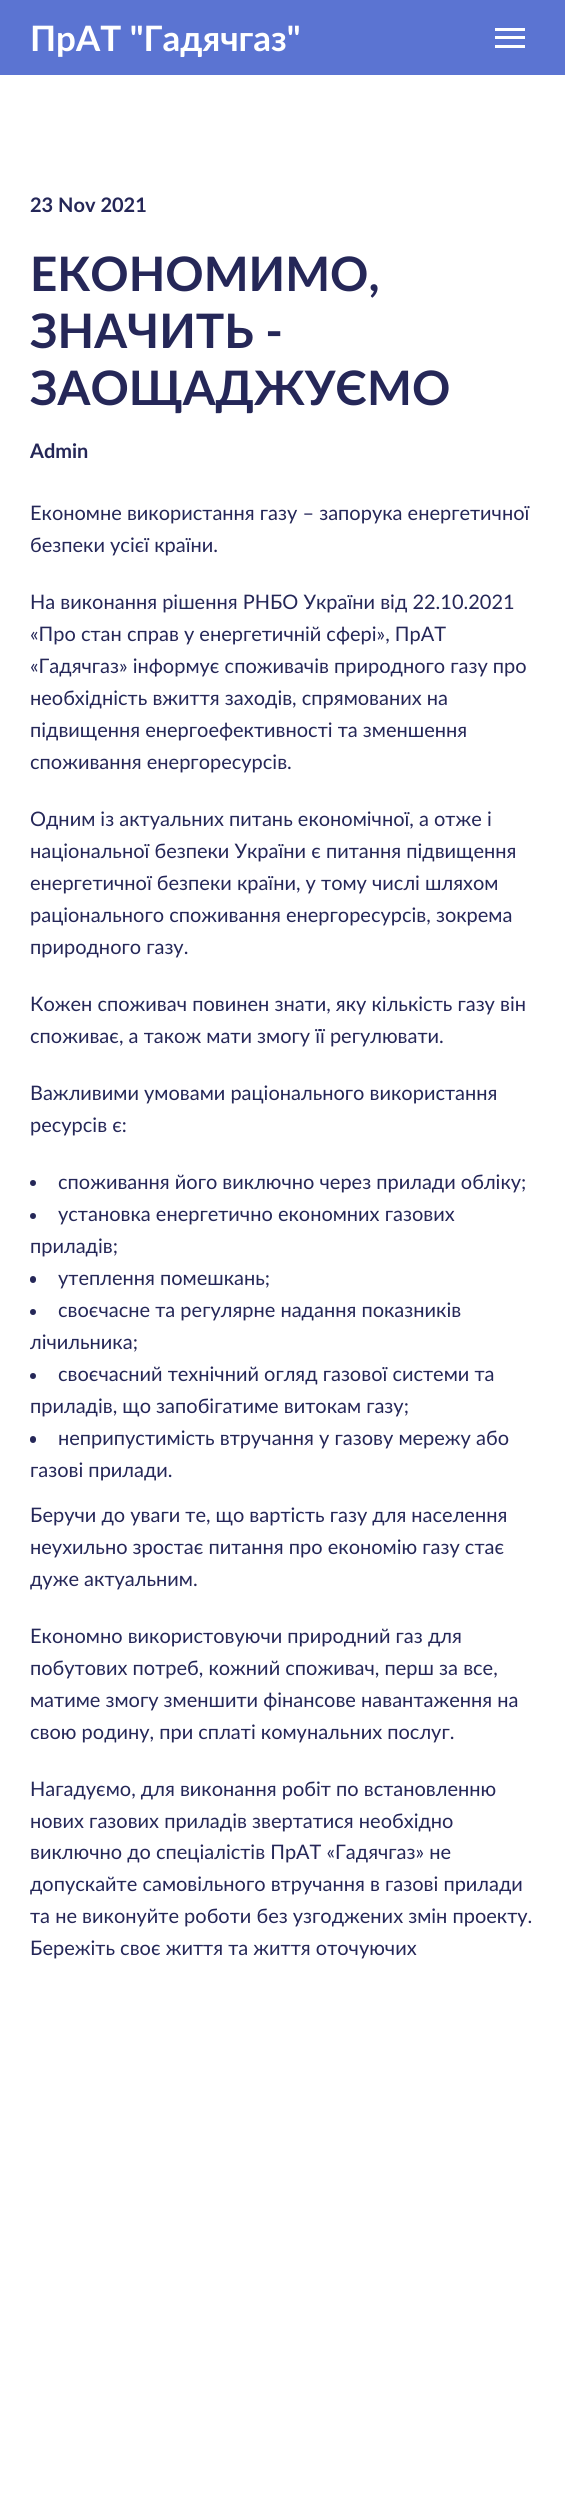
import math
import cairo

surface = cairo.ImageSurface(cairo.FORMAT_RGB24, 565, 2515)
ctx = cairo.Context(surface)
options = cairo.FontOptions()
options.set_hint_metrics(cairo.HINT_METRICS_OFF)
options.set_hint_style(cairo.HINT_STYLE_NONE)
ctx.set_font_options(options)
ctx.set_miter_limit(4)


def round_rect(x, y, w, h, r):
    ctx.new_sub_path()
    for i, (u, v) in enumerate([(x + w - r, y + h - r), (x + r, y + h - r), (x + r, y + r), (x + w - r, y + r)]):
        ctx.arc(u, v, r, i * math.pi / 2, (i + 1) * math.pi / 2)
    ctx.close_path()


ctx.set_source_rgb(1, 1, 1)
ctx.paint()
ctx.set_source_rgb(0.357, 0.455, 0.824)
ctx.rectangle(0, 0, 565, 75)
ctx.fill()
ctx.select_font_face("Lato", cairo.FONT_SLANT_NORMAL, cairo.FONT_WEIGHT_BOLD)
ctx.set_font_size(35)
ctx.set_source_rgb(1, 1, 1)
ctx.move_to(30, 51)
ctx.show_text("ПрАТ \"Гадячгаз\"")
ctx.rectangle(495, 28, 30, 3)
ctx.fill()
ctx.rectangle(495, 36, 30, 3)
ctx.fill()
ctx.rectangle(495, 45, 30, 3)
ctx.fill()
ctx.set_font_size(20)
ctx.set_source_rgb(0.145, 0.153, 0.345)
ctx.move_to(30, 212)
ctx.show_text("23 Nov 2021")
ctx.set_font_size(47.5)
ctx.move_to(30, 291)
ctx.show_text("ЕКОНОМИМО,")
ctx.move_to(30, 348)
ctx.show_text("ЗНАЧИТЬ -")
ctx.move_to(30, 405)
ctx.show_text("ЗАОЩАДЖУЄМО")
ctx.set_font_size(20)
ctx.move_to(30, 458)
ctx.show_text("Admin")
ctx.select_font_face("Lato")
ctx.move_to(30, 520)
ctx.show_text("Економне використання газу – запорука енергетичної")
ctx.move_to(30, 552)
ctx.show_text("безпеки усієї країни.")
ctx.move_to(30, 609)
ctx.show_text("На виконання рішення РНБО України від 22.10.2021")
ctx.move_to(30, 641)
ctx.show_text("«Про стан справ у енергетичній сфері», ПрАТ")
ctx.move_to(30, 673)
ctx.show_text("«Гадячгаз» інформує споживачів природного газу про")
ctx.move_to(30, 705)
ctx.show_text("необхідність вжиття заходів, спрямованих на")
ctx.move_to(30, 737)
ctx.show_text("підвищення енергоефективності та зменшення")
ctx.move_to(30, 769)
ctx.show_text("споживання енергоресурсів.")
ctx.move_to(30, 826)
ctx.show_text("Одним із актуальних питань економічної, а отже і")
ctx.move_to(30, 858)
ctx.show_text("національної безпеки України є питання підвищення")
ctx.move_to(30, 890)
ctx.show_text("енергетичної безпеки країни, у тому числі шляхом")
ctx.move_to(30, 922)
ctx.show_text("раціонального споживання енергоресурсів, зокрема")
ctx.move_to(30, 954)
ctx.show_text("природного газу.")
ctx.move_to(30, 1011)
ctx.show_text("Кожен споживач повинен знати, яку кількість газу він")
ctx.move_to(30, 1043)
ctx.show_text("споживає, а також мати змогу її регулювати.")
ctx.move_to(30, 1100)
ctx.show_text("Важливими умовами раціонального використання")
ctx.move_to(30, 1132)
ctx.show_text("ресурсів є:")
ctx.new_path()
ctx.arc(33, 1183, 3, 0, 2 * math.pi)
ctx.fill()
ctx.move_to(58, 1189)
ctx.show_text("споживання його виключно через прилади обліку;")
ctx.new_path()
ctx.arc(33, 1216, 3, 0, 2 * math.pi)
ctx.fill()
ctx.move_to(58, 1221)
ctx.show_text("установка енергетично економних газових")
ctx.move_to(30, 1253)
ctx.show_text("приладів;")
round_rect(30, 1276, 6, 7, 3)
ctx.fill()
ctx.move_to(58, 1285)
ctx.show_text("утеплення помешкань;")
ctx.new_path()
ctx.arc(33, 1312, 3, 0, 2 * math.pi)
ctx.fill()
ctx.move_to(58, 1317)
ctx.show_text("своєчасне та регулярне надання показників")
ctx.move_to(30, 1349)
ctx.show_text("лічильника;")
ctx.new_path()
ctx.arc(33, 1376, 3, 0, 2 * math.pi)
ctx.fill()
ctx.move_to(58, 1381)
ctx.show_text("своєчасний технічний огляд газової системи та")
ctx.move_to(30, 1413)
ctx.show_text("приладів, що запобігатиме витокам газу;")
round_rect(30, 1436, 6, 7, 3)
ctx.fill()
ctx.move_to(58, 1445)
ctx.show_text("неприпустимість втручання у газову мережу або")
ctx.move_to(30, 1477)
ctx.show_text("газові прилади.")
ctx.move_to(30, 1522)
ctx.show_text("Беручи до уваги те, що вартість газу для населення")
ctx.move_to(30, 1554)
ctx.show_text("неухильно зростає питання про економію газу стає")
ctx.move_to(30, 1586)
ctx.show_text("дуже актуальним.")
ctx.move_to(30, 1643)
ctx.show_text("Економно використовуючи природний газ для")
ctx.move_to(30, 1675)
ctx.show_text("побутових потреб, кожний споживач, перш за все,")
ctx.move_to(30, 1707)
ctx.show_text("матиме змогу зменшити фінансове навантаження на")
ctx.move_to(30, 1739)
ctx.show_text("свою родину, при сплаті комунальних послуг.")
ctx.move_to(30, 1796)
ctx.show_text("Нагадуємо, для виконання робіт по встановленню")
ctx.move_to(30, 1828)
ctx.show_text("нових газових приладів звертатися необхідно")
ctx.move_to(30, 1859)
ctx.show_text("виключно до спеціалістів ПрАТ «Гадячгаз» не")
ctx.move_to(30, 1891)
ctx.show_text("допускайте самовільного втручання в газові прилади")
ctx.move_to(30, 1923)
ctx.show_text("та не виконуйте роботи без узгоджених змін проекту.")
ctx.move_to(30, 1955)
ctx.show_text("Бережіть своє життя та життя оточуючих")
surface.write_to_png("page.png")
